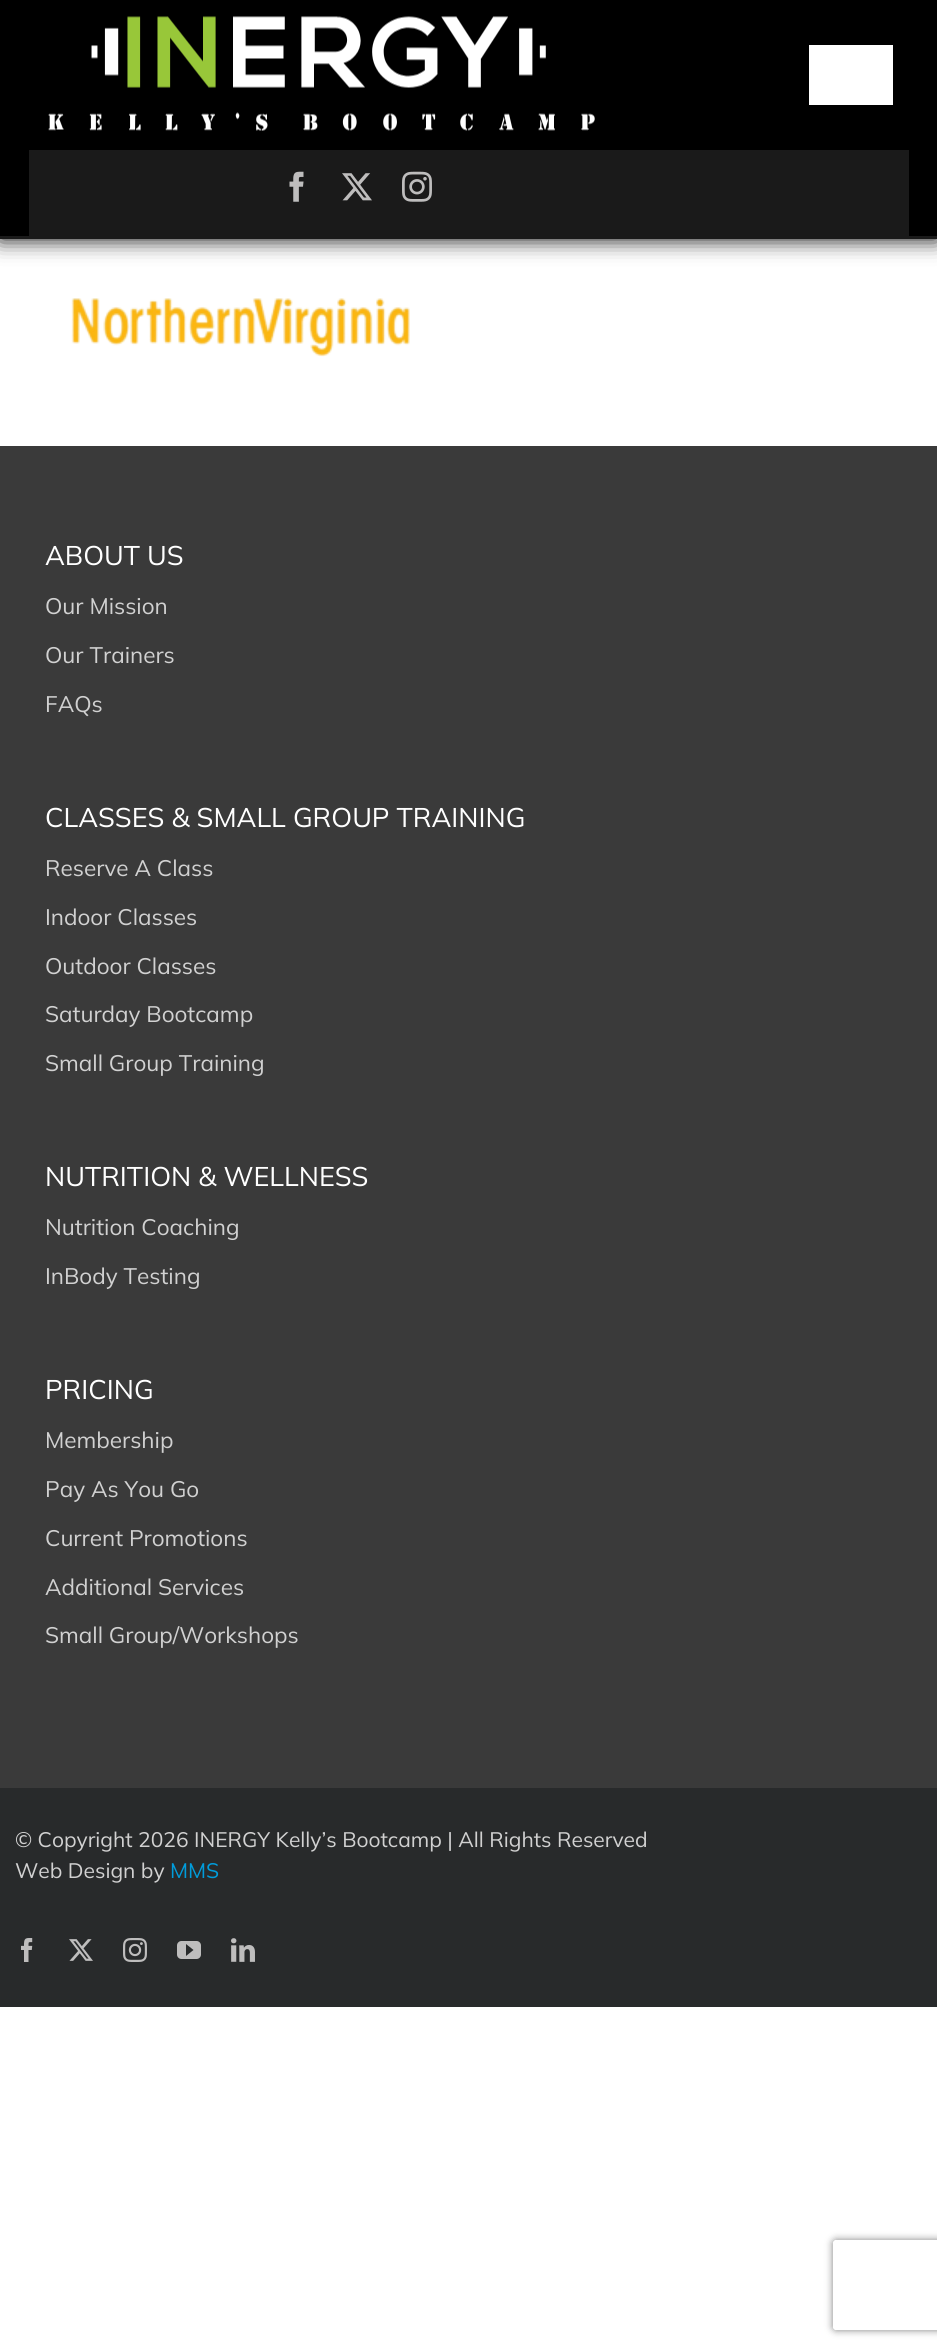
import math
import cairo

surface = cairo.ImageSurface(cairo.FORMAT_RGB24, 937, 2350)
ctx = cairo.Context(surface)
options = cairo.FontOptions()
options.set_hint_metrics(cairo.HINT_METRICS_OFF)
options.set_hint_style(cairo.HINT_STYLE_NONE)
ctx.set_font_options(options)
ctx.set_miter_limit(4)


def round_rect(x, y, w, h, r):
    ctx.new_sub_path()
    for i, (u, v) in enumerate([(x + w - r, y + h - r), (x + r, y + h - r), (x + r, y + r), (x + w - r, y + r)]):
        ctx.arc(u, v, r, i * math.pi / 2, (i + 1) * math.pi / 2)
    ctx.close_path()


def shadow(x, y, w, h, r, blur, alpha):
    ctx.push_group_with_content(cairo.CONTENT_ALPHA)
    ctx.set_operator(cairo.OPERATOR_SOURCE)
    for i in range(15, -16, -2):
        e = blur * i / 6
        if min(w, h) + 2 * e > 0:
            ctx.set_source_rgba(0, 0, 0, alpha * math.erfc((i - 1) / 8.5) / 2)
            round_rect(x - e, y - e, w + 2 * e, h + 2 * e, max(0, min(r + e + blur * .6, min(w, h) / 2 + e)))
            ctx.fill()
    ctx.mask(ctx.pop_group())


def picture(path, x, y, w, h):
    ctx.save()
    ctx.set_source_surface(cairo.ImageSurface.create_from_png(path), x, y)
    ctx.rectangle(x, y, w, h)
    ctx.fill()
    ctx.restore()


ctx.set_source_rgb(1, 1, 1)
ctx.paint()
ctx.set_source_rgb(0, 0, 0)
shadow(0, 0, 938, 239, 0, 11, 1)
ctx.set_source_rgb(0, 0, 0)
ctx.rectangle(0, 0, 937, 236)
ctx.fill()
ctx.set_source_rgb(0.102, 0.102, 0.102)
ctx.rectangle(0, 236, 937, 3)
ctx.fill()
picture("img1.png", 48, 16, 547, 115)
ctx.set_source_rgb(1, 1, 1)
ctx.rectangle(809, 45, 84, 60)
ctx.fill()
ctx.set_source_rgb(0.102, 0.102, 0.102)
ctx.rectangle(29, 150, 880, 86)
ctx.fill()
picture("img2.png", 289, 171, 15, 31)
picture("img3.png", 342, 173, 30, 28)
picture("img4.png", 402, 171, 30, 31)
picture("img5.png", 71, 298, 339, 59)
ctx.set_source_rgb(0.227, 0.227, 0.227)
ctx.rectangle(0, 446, 937, 1342)
ctx.fill()
ctx.select_font_face("Mulish")
ctx.set_font_size(27)
ctx.set_source_rgb(1, 1, 1)
ctx.move_to(45, 565)
ctx.show_text("ABOUT US")
ctx.set_font_size(22.5)
ctx.set_source_rgb(0.82, 0.82, 0.82)
ctx.move_to(45, 614)
ctx.show_text("Our Mission")
ctx.move_to(45, 663)
ctx.show_text("Our Trainers")
ctx.move_to(45, 712)
ctx.show_text("FAQs")
ctx.set_font_size(27)
ctx.set_source_rgb(1, 1, 1)
ctx.move_to(45, 827)
ctx.show_text("CLASSES & SMALL GROUP TRAINING")
ctx.set_font_size(22.5)
ctx.set_source_rgb(0.82, 0.82, 0.82)
ctx.move_to(45, 876)
ctx.show_text("Reserve A Class")
ctx.move_to(45, 925)
ctx.show_text("Indoor Classes")
ctx.move_to(45, 974)
ctx.show_text("Outdoor Classes")
ctx.move_to(45, 1022)
ctx.show_text("Saturday Bootcamp")
ctx.move_to(45, 1071)
ctx.show_text("Small Group Training")
ctx.set_font_size(27)
ctx.set_source_rgb(1, 1, 1)
ctx.move_to(45, 1186)
ctx.show_text("NUTRITION & WELLNESS")
ctx.set_font_size(22.5)
ctx.set_source_rgb(0.82, 0.82, 0.82)
ctx.move_to(45, 1235)
ctx.show_text("Nutrition Coaching")
ctx.move_to(45, 1284)
ctx.show_text("InBody Testing")
ctx.set_font_size(27)
ctx.set_source_rgb(1, 1, 1)
ctx.move_to(45, 1399)
ctx.show_text("PRICING")
ctx.set_font_size(22.5)
ctx.set_source_rgb(0.82, 0.82, 0.82)
ctx.move_to(45, 1448)
ctx.show_text("Membership")
ctx.move_to(45, 1497)
ctx.show_text("Pay As You Go")
ctx.move_to(45, 1546)
ctx.show_text("Current Promotions")
ctx.move_to(45, 1595)
ctx.show_text("Additional Services")
ctx.move_to(45, 1643)
ctx.show_text("Small Group/Workshops")
ctx.set_source_rgb(0.157, 0.165, 0.169)
ctx.rectangle(0, 1788, 937, 219)
ctx.fill()
ctx.set_font_size(21)
ctx.set_source_rgb(0.82, 0.82, 0.82)
ctx.move_to(15, 1847)
ctx.show_text("© Copyright 2026 INERGY Kelly’s Bootcamp | All Rights Reserved")
ctx.move_to(15, 1878)
ctx.show_text("Web Design by")
ctx.set_source_rgb(0, 0.612, 0.859)
ctx.move_to(170, 1878)
ctx.show_text("MMS")
picture("img6.png", 21, 1938, 12, 24)
picture("img7.png", 69, 1939, 24, 22)
picture("img8.png", 123, 1938, 24, 24)
picture("img9.png", 177, 1941, 24, 18)
picture("img10.png", 231, 1938, 24, 24)
ctx.save()
ctx.set_fill_rule(cairo.FILL_RULE_EVEN_ODD)
ctx.new_path()
ctx.move_to(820, 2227)
ctx.line_to(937, 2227)
ctx.line_to(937, 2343)
ctx.line_to(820, 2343)
ctx.close_path()
ctx.move_to(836, 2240)
ctx.line_to(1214, 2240)
ctx.curve_to(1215.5, 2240, 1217, 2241.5, 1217, 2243)
ctx.line_to(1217, 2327)
ctx.curve_to(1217, 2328.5, 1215.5, 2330, 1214, 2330)
ctx.line_to(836, 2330)
ctx.curve_to(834.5, 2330, 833, 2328.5, 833, 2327)
ctx.line_to(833, 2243)
ctx.curve_to(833, 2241.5, 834.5, 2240, 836, 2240)
ctx.close_path()
ctx.clip()
ctx.set_source_rgb(0.502, 0.502, 0.502)
shadow(833, 2240, 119, 90, 3, 4, 1)
ctx.restore()
surface.write_to_png("page.png")
